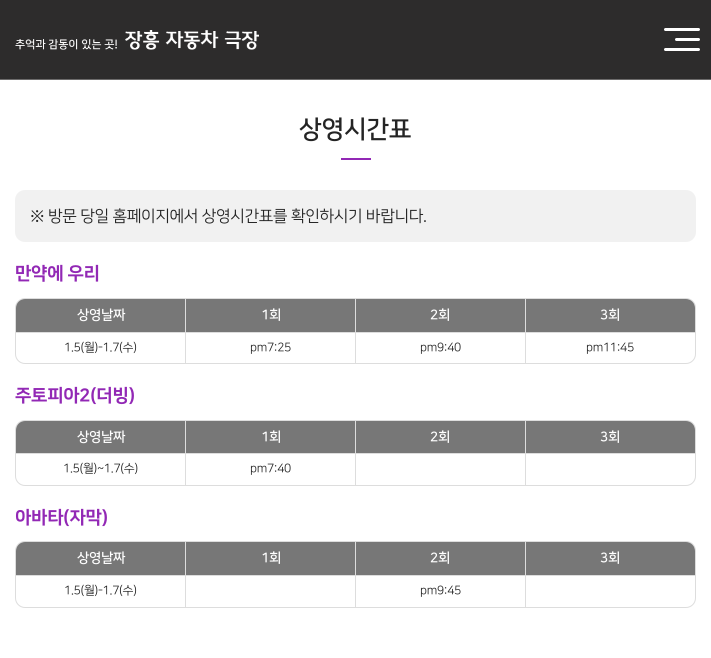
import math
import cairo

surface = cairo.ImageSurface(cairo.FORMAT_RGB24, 711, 658)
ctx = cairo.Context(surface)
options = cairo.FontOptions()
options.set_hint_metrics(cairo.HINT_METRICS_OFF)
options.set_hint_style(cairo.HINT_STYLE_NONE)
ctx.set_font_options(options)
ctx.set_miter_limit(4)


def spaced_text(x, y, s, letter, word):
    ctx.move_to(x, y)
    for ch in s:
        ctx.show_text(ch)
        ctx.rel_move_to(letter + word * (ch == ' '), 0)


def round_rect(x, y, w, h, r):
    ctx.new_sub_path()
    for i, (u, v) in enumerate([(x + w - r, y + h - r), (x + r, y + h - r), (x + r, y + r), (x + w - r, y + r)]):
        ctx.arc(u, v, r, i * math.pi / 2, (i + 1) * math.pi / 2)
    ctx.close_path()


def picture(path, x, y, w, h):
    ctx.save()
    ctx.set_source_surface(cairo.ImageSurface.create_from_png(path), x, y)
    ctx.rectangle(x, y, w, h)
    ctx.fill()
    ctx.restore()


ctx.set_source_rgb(1, 1, 1)
ctx.paint()
ctx.set_source_rgb(0.176, 0.173, 0.173)
ctx.rectangle(0, 0, 711, 79)
ctx.fill()
ctx.set_source_rgb(0.424, 0.42, 0.42)
ctx.rectangle(0, 79, 711, 1)
ctx.fill()
picture("img1.png", 15, 30, 244, 20)
ctx.set_source_rgb(1, 1, 1)
round_rect(675, 38, 25, 3, 1.5)
ctx.fill()
round_rect(664, 28, 36, 3, 1.5)
ctx.fill()
round_rect(664, 48, 36, 3, 1.5)
ctx.fill()
ctx.select_font_face("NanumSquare", cairo.FONT_SLANT_NORMAL, cairo.FONT_WEIGHT_BOLD)
ctx.set_font_size(25)
ctx.set_source_rgb(0.141, 0.141, 0.141)
spaced_text(299, 137, "상영시간표", -0.3, 0)
ctx.set_source_rgb(0.573, 0.157, 0.71)
ctx.rectangle(341, 158, 30, 2)
ctx.fill()
ctx.set_source_rgb(0.945, 0.945, 0.945)
round_rect(15, 190, 681, 52, 10)
ctx.fill()
ctx.select_font_face("NanumSquare")
ctx.set_font_size(16)
ctx.set_source_rgb(0.141, 0.141, 0.141)
spaced_text(30, 221, "※ 방문 당일 홈페이지에서 상영시간표를 확인하시기 바랍니다.", -0.3, 0)
ctx.select_font_face("NanumSquare ExtraBold")
ctx.set_font_size(18)
ctx.set_source_rgb(0.573, 0.157, 0.71)
spaced_text(15, 279, "만약에 우리", -0.3, 0)
round_rect(15.5, 298.5, 680, 65, 9.5)
ctx.set_source_rgb(0.867, 0.867, 0.867)
ctx.set_line_width(1)
ctx.stroke()
ctx.set_source_rgb(0.467, 0.467, 0.467)
ctx.new_path()
ctx.move_to(25, 299)
ctx.line_to(186, 299)
ctx.line_to(186, 332)
ctx.line_to(16, 332)
ctx.line_to(16, 308)
ctx.curve_to(16, 303, 20, 299, 25, 299)
ctx.close_path()
ctx.fill()
ctx.select_font_face("NanumSquare", cairo.FONT_SLANT_NORMAL, cairo.FONT_WEIGHT_BOLD)
ctx.set_font_size(13.5)
ctx.set_source_rgb(1, 1, 1)
spaced_text(77, 319, "상영날짜", -0.3, 0)
ctx.set_source_rgb(0.467, 0.467, 0.467)
ctx.rectangle(186, 299, 169, 33)
ctx.fill()
ctx.set_source_rgb(0.867, 0.867, 0.867)
ctx.rectangle(525, 332, 170, 1)
ctx.fill()
ctx.rectangle(525, 332, 1, 31)
ctx.fill()
ctx.rectangle(355, 332, 171, 1)
ctx.fill()
ctx.rectangle(355, 332, 1, 31)
ctx.fill()
ctx.rectangle(185, 332, 171, 1)
ctx.fill()
ctx.rectangle(185, 332, 1, 31)
ctx.fill()
ctx.rectangle(16, 332, 170, 1)
ctx.fill()
ctx.rectangle(185, 299, 1, 34)
ctx.fill()
ctx.set_source_rgb(1, 1, 1)
spaced_text(261, 319, "1회", -0.3, 0)
ctx.set_source_rgb(0.467, 0.467, 0.467)
ctx.rectangle(356, 299, 169, 33)
ctx.fill()
ctx.set_source_rgb(0.867, 0.867, 0.867)
ctx.rectangle(355, 299, 1, 34)
ctx.fill()
ctx.set_source_rgb(1, 1, 1)
spaced_text(430, 319, "2회", -0.3, 0)
ctx.set_source_rgb(0.467, 0.467, 0.467)
ctx.new_path()
ctx.move_to(525, 299)
ctx.line_to(686, 299)
ctx.curve_to(691, 299, 695, 303, 695, 308)
ctx.line_to(695, 332)
ctx.line_to(525, 332)
ctx.close_path()
ctx.fill()
ctx.set_source_rgb(0.867, 0.867, 0.867)
ctx.rectangle(525, 299, 1, 34)
ctx.fill()
ctx.set_source_rgb(1, 1, 1)
spaced_text(600, 319, "3회", -0.3, 0)
ctx.select_font_face("NanumSquare")
ctx.set_font_size(12)
ctx.set_source_rgb(0.141, 0.141, 0.141)
spaced_text(64, 351, "1.5(월)-1.7(수)", -0.3, 0)
spaced_text(250, 351, "pm7:25", -0.3, 0)
spaced_text(420, 351, "pm9:40", -0.3, 0)
spaced_text(586, 351, "pm11:45", -0.3, 0)
ctx.select_font_face("NanumSquare ExtraBold")
ctx.set_font_size(18)
ctx.set_source_rgb(0.573, 0.157, 0.71)
spaced_text(15, 401, "주토피아2(더빙)", -0.3, 0)
round_rect(15.5, 420.5, 680, 65, 9.5)
ctx.set_source_rgb(0.867, 0.867, 0.867)
ctx.stroke()
ctx.set_source_rgb(0.467, 0.467, 0.467)
ctx.new_path()
ctx.move_to(25, 421)
ctx.line_to(186, 421)
ctx.line_to(186, 454)
ctx.line_to(16, 454)
ctx.line_to(16, 430)
ctx.curve_to(16, 425, 20, 421, 25, 421)
ctx.close_path()
ctx.fill()
ctx.select_font_face("NanumSquare", cairo.FONT_SLANT_NORMAL, cairo.FONT_WEIGHT_BOLD)
ctx.set_font_size(13.5)
ctx.set_source_rgb(1, 1, 1)
spaced_text(77, 441, "상영날짜", -0.3, 0)
ctx.set_source_rgb(0.467, 0.467, 0.467)
ctx.rectangle(186, 421, 169, 32)
ctx.fill()
ctx.new_path()
ctx.move_to(525, 421)
ctx.line_to(686, 421)
ctx.curve_to(691, 421, 695, 425, 695, 430)
ctx.line_to(695, 454)
ctx.line_to(525, 454)
ctx.close_path()
ctx.fill()
ctx.set_source_rgb(0.867, 0.867, 0.867)
ctx.rectangle(525, 453, 170, 1)
ctx.fill()
ctx.rectangle(525, 453, 1, 32)
ctx.fill()
ctx.rectangle(355, 453, 171, 1)
ctx.fill()
ctx.rectangle(355, 453, 1, 32)
ctx.fill()
ctx.rectangle(185, 453, 171, 1)
ctx.fill()
ctx.rectangle(185, 453, 1, 32)
ctx.fill()
ctx.rectangle(16, 453, 170, 1)
ctx.fill()
ctx.rectangle(185, 421, 1, 33)
ctx.fill()
ctx.set_source_rgb(1, 1, 1)
spaced_text(261, 441, "1회", -0.3, 0)
ctx.set_source_rgb(0.467, 0.467, 0.467)
ctx.rectangle(356, 421, 169, 32)
ctx.fill()
ctx.set_source_rgb(0.867, 0.867, 0.867)
ctx.rectangle(355, 421, 1, 33)
ctx.fill()
ctx.set_source_rgb(1, 1, 1)
spaced_text(430, 441, "2회", -0.3, 0)
ctx.set_source_rgb(0.867, 0.867, 0.867)
ctx.rectangle(525, 421, 1, 33)
ctx.fill()
ctx.set_source_rgb(1, 1, 1)
spaced_text(600, 441, "3회", -0.3, 0)
ctx.select_font_face("NanumSquare")
ctx.set_font_size(12)
ctx.set_source_rgb(0.141, 0.141, 0.141)
spaced_text(63, 472, "1.5(월)~1.7(수)", -0.3, 0)
spaced_text(250, 472, "pm7:40", -0.3, 0)
ctx.select_font_face("NanumSquare ExtraBold")
ctx.set_font_size(18)
ctx.set_source_rgb(0.573, 0.157, 0.71)
spaced_text(15, 523, "아바타(자막)", -0.3, 0)
round_rect(15.5, 541.5, 680, 66, 9.5)
ctx.set_source_rgb(0.867, 0.867, 0.867)
ctx.stroke()
ctx.set_source_rgb(0.467, 0.467, 0.467)
ctx.new_path()
ctx.move_to(25, 542)
ctx.line_to(186, 542)
ctx.line_to(186, 576)
ctx.line_to(16, 576)
ctx.line_to(16, 551)
ctx.curve_to(16, 546, 20, 542, 25, 542)
ctx.close_path()
ctx.fill()
ctx.select_font_face("NanumSquare", cairo.FONT_SLANT_NORMAL, cairo.FONT_WEIGHT_BOLD)
ctx.set_font_size(13.5)
ctx.set_source_rgb(1, 1, 1)
spaced_text(77, 562, "상영날짜", -0.3, 0)
ctx.set_source_rgb(0.467, 0.467, 0.467)
ctx.rectangle(186, 542, 169, 33)
ctx.fill()
ctx.new_path()
ctx.move_to(525, 542)
ctx.line_to(686, 542)
ctx.curve_to(691, 542, 695, 546, 695, 551)
ctx.line_to(695, 576)
ctx.line_to(525, 576)
ctx.close_path()
ctx.fill()
ctx.set_source_rgb(0.867, 0.867, 0.867)
ctx.rectangle(525, 575, 170, 1)
ctx.fill()
ctx.rectangle(525, 575, 1, 32)
ctx.fill()
ctx.rectangle(355, 575, 171, 1)
ctx.fill()
ctx.rectangle(355, 575, 1, 32)
ctx.fill()
ctx.rectangle(185, 575, 171, 1)
ctx.fill()
ctx.rectangle(185, 575, 1, 32)
ctx.fill()
ctx.rectangle(16, 575, 170, 1)
ctx.fill()
ctx.rectangle(185, 542, 1, 34)
ctx.fill()
ctx.set_source_rgb(1, 1, 1)
spaced_text(261, 562, "1회", -0.3, 0)
ctx.set_source_rgb(0.467, 0.467, 0.467)
ctx.rectangle(356, 542, 169, 33)
ctx.fill()
ctx.set_source_rgb(0.867, 0.867, 0.867)
ctx.rectangle(355, 542, 1, 34)
ctx.fill()
ctx.set_source_rgb(1, 1, 1)
spaced_text(430, 562, "2회", -0.3, 0)
ctx.set_source_rgb(0.867, 0.867, 0.867)
ctx.rectangle(525, 542, 1, 34)
ctx.fill()
ctx.set_source_rgb(1, 1, 1)
spaced_text(600, 562, "3회", -0.3, 0)
ctx.select_font_face("NanumSquare")
ctx.set_font_size(12)
ctx.set_source_rgb(0.141, 0.141, 0.141)
spaced_text(64, 594, "1.5(월)-1.7(수)", -0.3, 0)
spaced_text(420, 594, "pm9:45", -0.3, 0)
surface.write_to_png("page.png")
